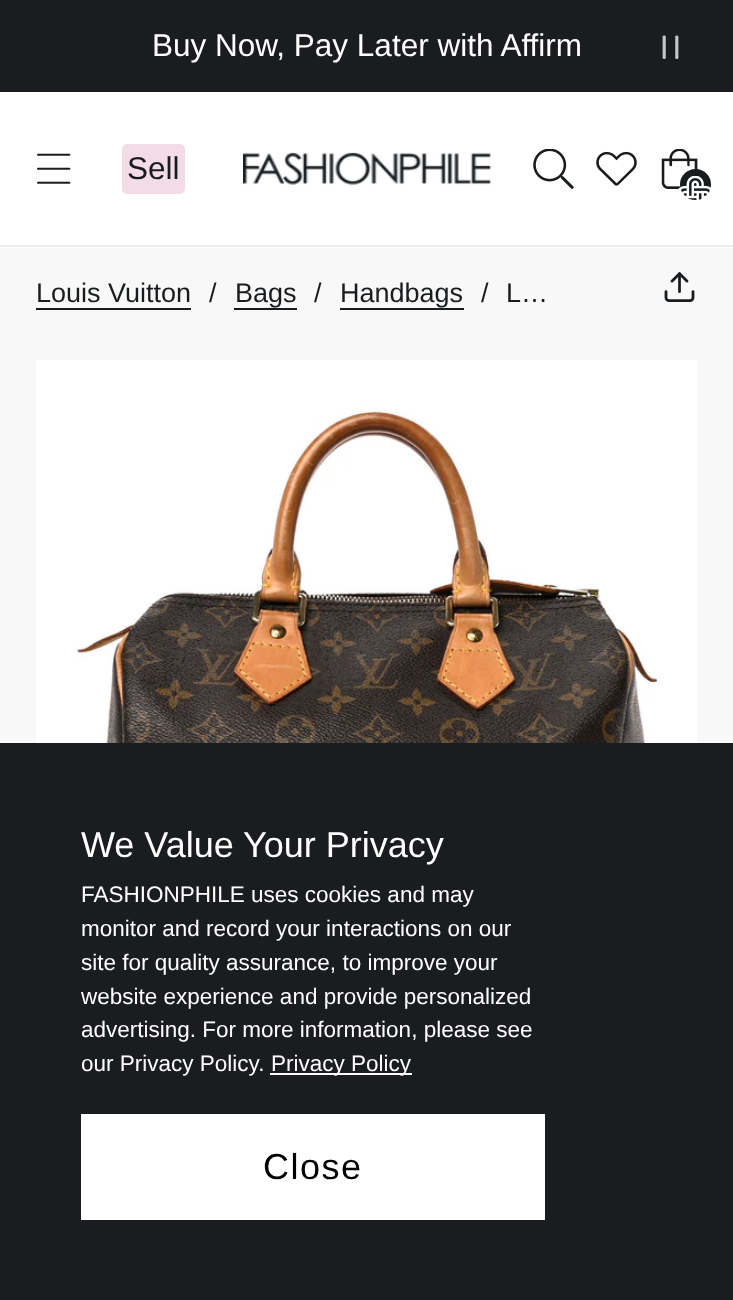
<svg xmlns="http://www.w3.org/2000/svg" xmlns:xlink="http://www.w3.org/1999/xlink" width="733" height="1300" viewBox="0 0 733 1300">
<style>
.cls-1{font:31.5px Liberation Sans;fill:#ffffff}
.cls-2{font:31.5px Liberation Sans;fill:#191c1f}
.cls-3{font:27px Liberation Sans;fill:#191c1f}
.cls-4{font:36px Liberation Sans;fill:#ffffff}
.cls-5{font:22.5px Liberation Sans;fill:#ffffff}
.cls-6{font:36px Liberation Sans;letter-spacing:1.5px;fill:#000000}
</style>
<rect width="100%" height="100%" fill="#ffffff"/>
<rect fill="#1a1c1f" x="0" y="0" width="733" height="92"/>
<image xlink:href="image0.png" x="662" y="35" width="17" height="24"/>
<rect fill="#ededed" x="0" y="245" width="733" height="2"/>
<image xlink:href="image1.png" x="37" y="153" width="34" height="31"/>
<rect fill="#f3dce6" x="122" y="144" width="63" height="50" rx="5"/>
<image xlink:href="image2.png" x="243" y="152" width="248" height="33"/>
<image xlink:href="image3.png" x="533" y="149" width="41" height="40"/>
<image xlink:href="image4.png" x="596" y="151" width="41" height="35"/>
<image xlink:href="image5.png" x="661" y="149" width="37" height="40"/>
<circle fill="#191c1f" cx="695.5" cy="184.5" r="15.5"/>
<image xlink:href="image6.png" x="678" y="176" width="33" height="24"/>
<rect fill="#f8f8f8" x="0" y="248" width="733" height="495"/>
<rect fill="#191c1f" x="36" y="308" width="155" height="2"/>
<rect fill="#191c1f" x="234" y="308" width="63" height="2"/>
<rect fill="#191c1f" x="340" y="308" width="124" height="2"/>
<image xlink:href="image7.png" x="664" y="272" width="31" height="30"/>
<image xlink:href="image8.png" x="36" y="360" width="661" height="383"/>
<rect fill="#1a1c1f" x="0" y="743" width="733" height="557"/>
<rect fill="#ffffff" x="270" y="1073" width="142" height="2"/>
<rect fill="#ffffff" x="81" y="1114" width="464" height="106"/>
<text class="cls-1" x="152" y="56">Buy Now, Pay Later with Affirm</text>
<text class="cls-2" x="127" y="179">Sell</text>
<text class="cls-3" x="36" y="302">Louis Vuitton</text>
<text class="cls-3" x="209" y="302">/</text>
<text class="cls-3" x="235" y="302">Bags</text>
<text class="cls-3" x="314" y="302">/</text>
<text class="cls-3" x="340" y="302">Handbags</text>
<text class="cls-3" x="481" y="302">/</text>
<text class="cls-3" x="506" y="302">L…</text>
<text class="cls-4" x="81" y="857">We Value Your Privacy</text>
<text class="cls-5"><tspan x="81" y="902">FASHIONPHILE uses cookies and may</tspan><tspan x="81" y="936">monitor and record your interactions on our</tspan><tspan x="81" y="970">site for quality assurance, to improve your</tspan><tspan x="81" y="1004">website experience and provide personalized</tspan><tspan x="81" y="1037">advertising. For more information, please see</tspan><tspan x="81" y="1071">our Privacy Policy.</tspan></text>
<text class="cls-5" x="271" y="1071">Privacy Policy</text>
<text class="cls-6" x="263" y="1179">Close</text>
</svg>
